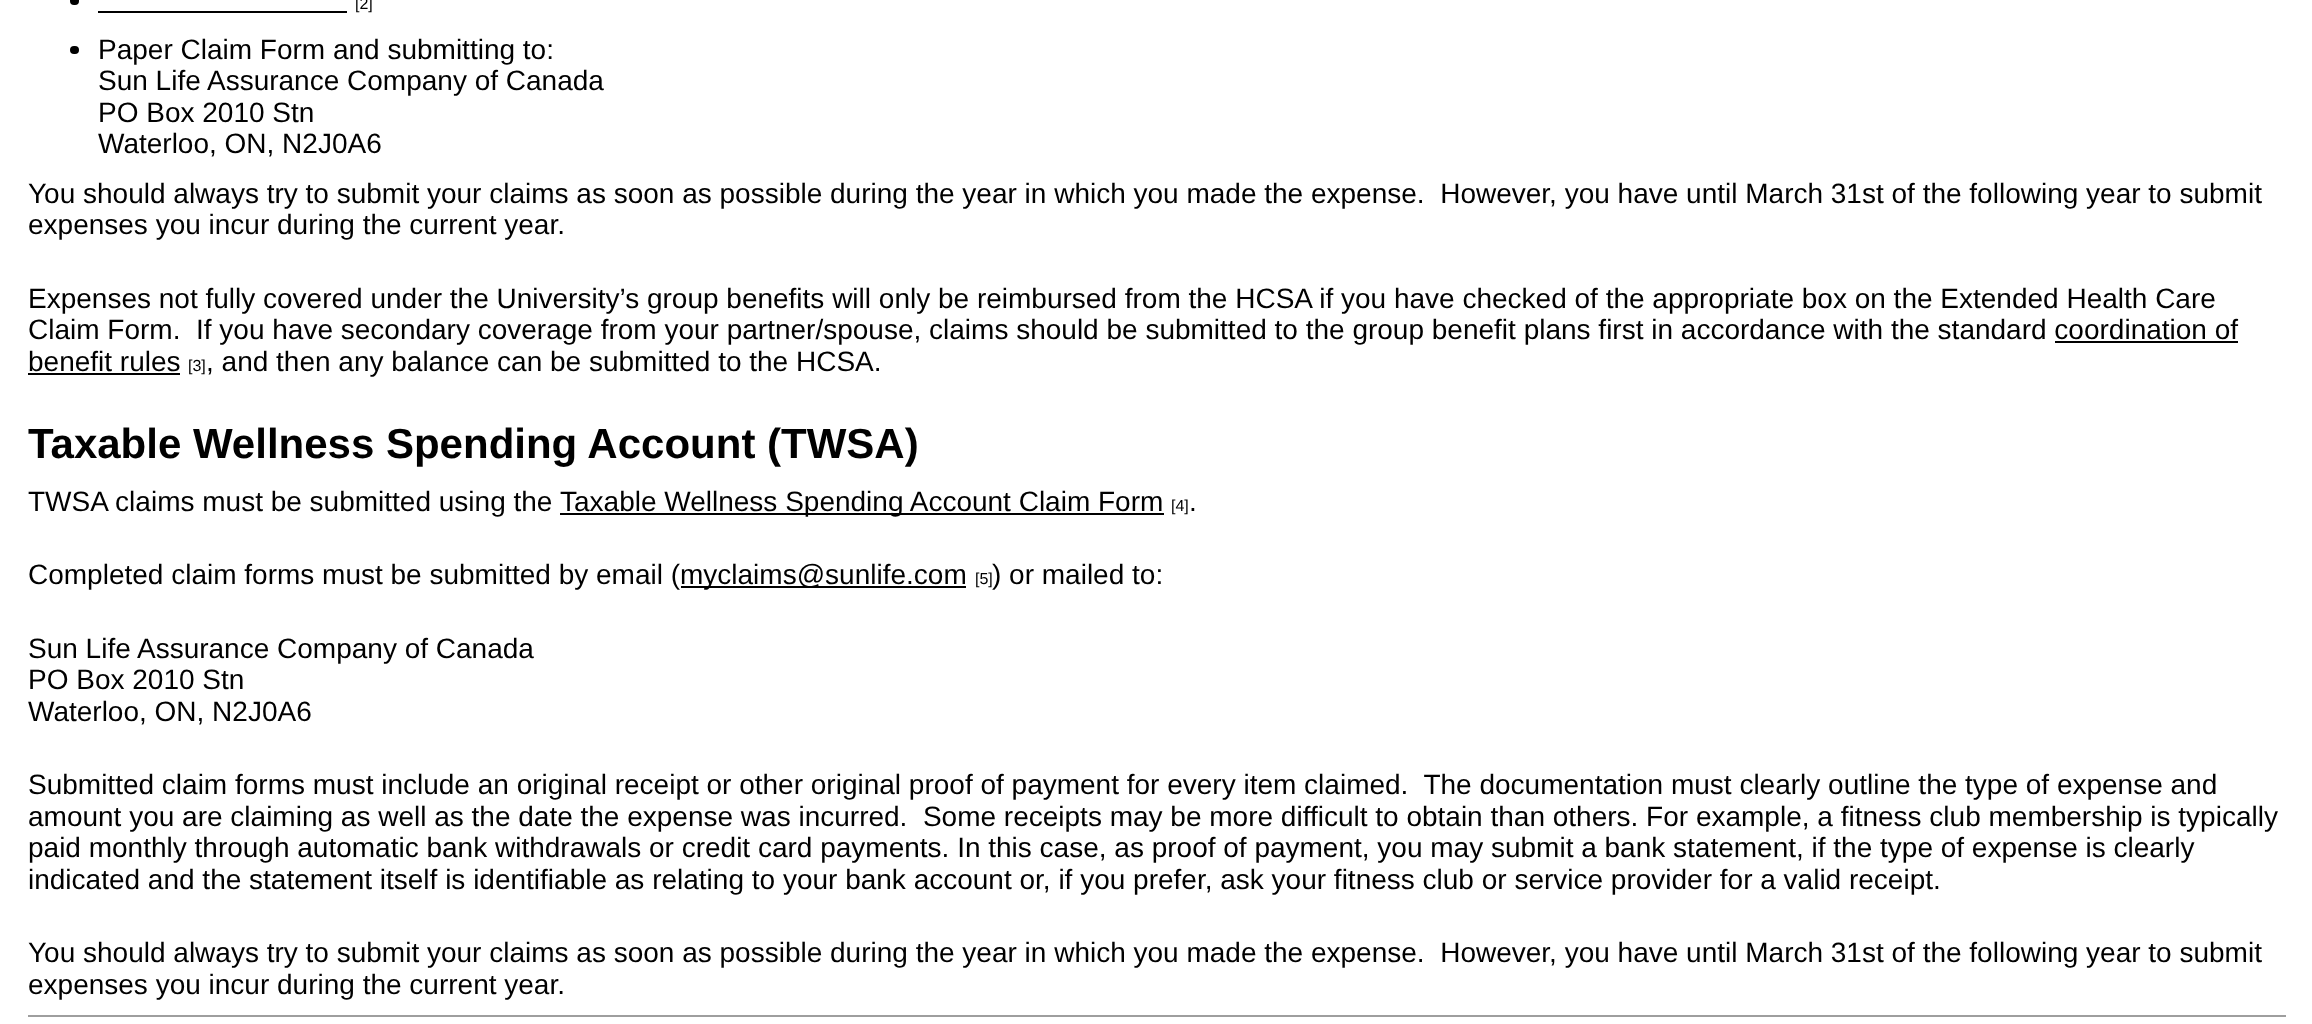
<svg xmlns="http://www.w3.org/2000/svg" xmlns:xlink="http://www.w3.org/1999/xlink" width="2312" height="1024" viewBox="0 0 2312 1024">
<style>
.cls-1{font:16px Liberation Sans;fill:#000000}
.cls-2{font:28px Liberation Sans;fill:#000000}
.cls-3{font:bold 42px Liberation Sans;fill:#000000}
</style>
<rect width="100%" height="100%" fill="#ffffff"/>
<rect fill="#000000" x="70" y="-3" width="9" height="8" rx="4"/>
<rect fill="#000000" x="98" y="11" width="249" height="2"/>
<rect fill="#000000" x="70" y="46" width="9" height="8" rx="4"/>
<rect fill="#000000" x="2055" y="341" width="183" height="2"/>
<rect fill="#000000" x="28" y="373" width="152" height="2"/>
<rect fill="#000000" x="560" y="513" width="604" height="2"/>
<rect fill="#000000" x="681" y="586" width="285" height="2"/>
<rect fill="#9e9e9e" x="28" y="1015" width="2258" height="2"/>
<text class="cls-1" x="355" y="9">[2]</text>
<text class="cls-2"><tspan x="98" y="59">Paper Claim Form and submitting to:</tspan><tspan x="98" y="90">Sun Life Assurance Company of Canada</tspan><tspan x="98" y="122">PO Box 2010 Stn</tspan><tspan x="98" y="153">Waterloo, ON, N2J0A6</tspan></text>
<text class="cls-2" xml:space="preserve"><tspan x="28" y="203">You should always try to submit your claims as soon as possible during the year in which you made the expense.  However, you have until March 31st of the following year to submit</tspan><tspan x="28" y="234">expenses you incur during the current year.</tspan></text>
<text class="cls-2" xml:space="preserve"><tspan x="28" y="308">Expenses not fully covered under the University’s group benefits will only be reimbursed from the HCSA if you have checked of the appropriate box on the Extended Health Care</tspan><tspan x="28" y="339">Claim Form.  If you have secondary coverage from your partner/spouse, claims should be submitted to the group benefit plans first in accordance with the standard coordination of</tspan><tspan x="28" y="371">benefit rules</tspan></text>
<text class="cls-1" x="188" y="371">[3]</text>
<text class="cls-2" x="206" y="371">, and then any balance can be submitted to the HCSA.</text>
<text class="cls-3" x="28" y="458">Taxable Wellness Spending Account (TWSA)</text>
<text class="cls-2" x="28" y="511">TWSA claims must be submitted using the</text>
<text class="cls-2" x="560" y="511">Taxable Wellness Spending Account Claim Form</text>
<text class="cls-1" x="1171" y="511">[4]</text>
<text class="cls-2" x="1189" y="511">.</text>
<text class="cls-2" x="28" y="584">Completed claim forms must be submitted by email (</text>
<text class="cls-2" x="680" y="584">myclaims@sunlife.com</text>
<text class="cls-1" x="975" y="584">[5]</text>
<text class="cls-2" x="992" y="584">) or mailed to:</text>
<text class="cls-2"><tspan x="28" y="658">Sun Life Assurance Company of Canada</tspan><tspan x="28" y="689">PO Box 2010 Stn</tspan><tspan x="28" y="721">Waterloo, ON, N2J0A6</tspan></text>
<text class="cls-2" xml:space="preserve"><tspan x="28" y="794">Submitted claim forms must include an original receipt or other original proof of payment for every item claimed.  The documentation must clearly outline the type of expense and</tspan><tspan x="28" y="826">amount you are claiming as well as the date the expense was incurred.  Some receipts may be more difficult to obtain than others. For example, a fitness club membership is typically</tspan><tspan x="28" y="857">paid monthly through automatic bank withdrawals or credit card payments. In this case, as proof of payment, you may submit a bank statement, if the type of expense is clearly</tspan><tspan x="28" y="889">indicated and the statement itself is identifiable as relating to your bank account or, if you prefer, ask your fitness club or service provider for a valid receipt.</tspan></text>
<text class="cls-2" xml:space="preserve"><tspan x="28" y="962">You should always try to submit your claims as soon as possible during the year in which you made the expense.  However, you have until March 31st of the following year to submit</tspan><tspan x="28" y="994">expenses you incur during the current year.</tspan></text>
</svg>
